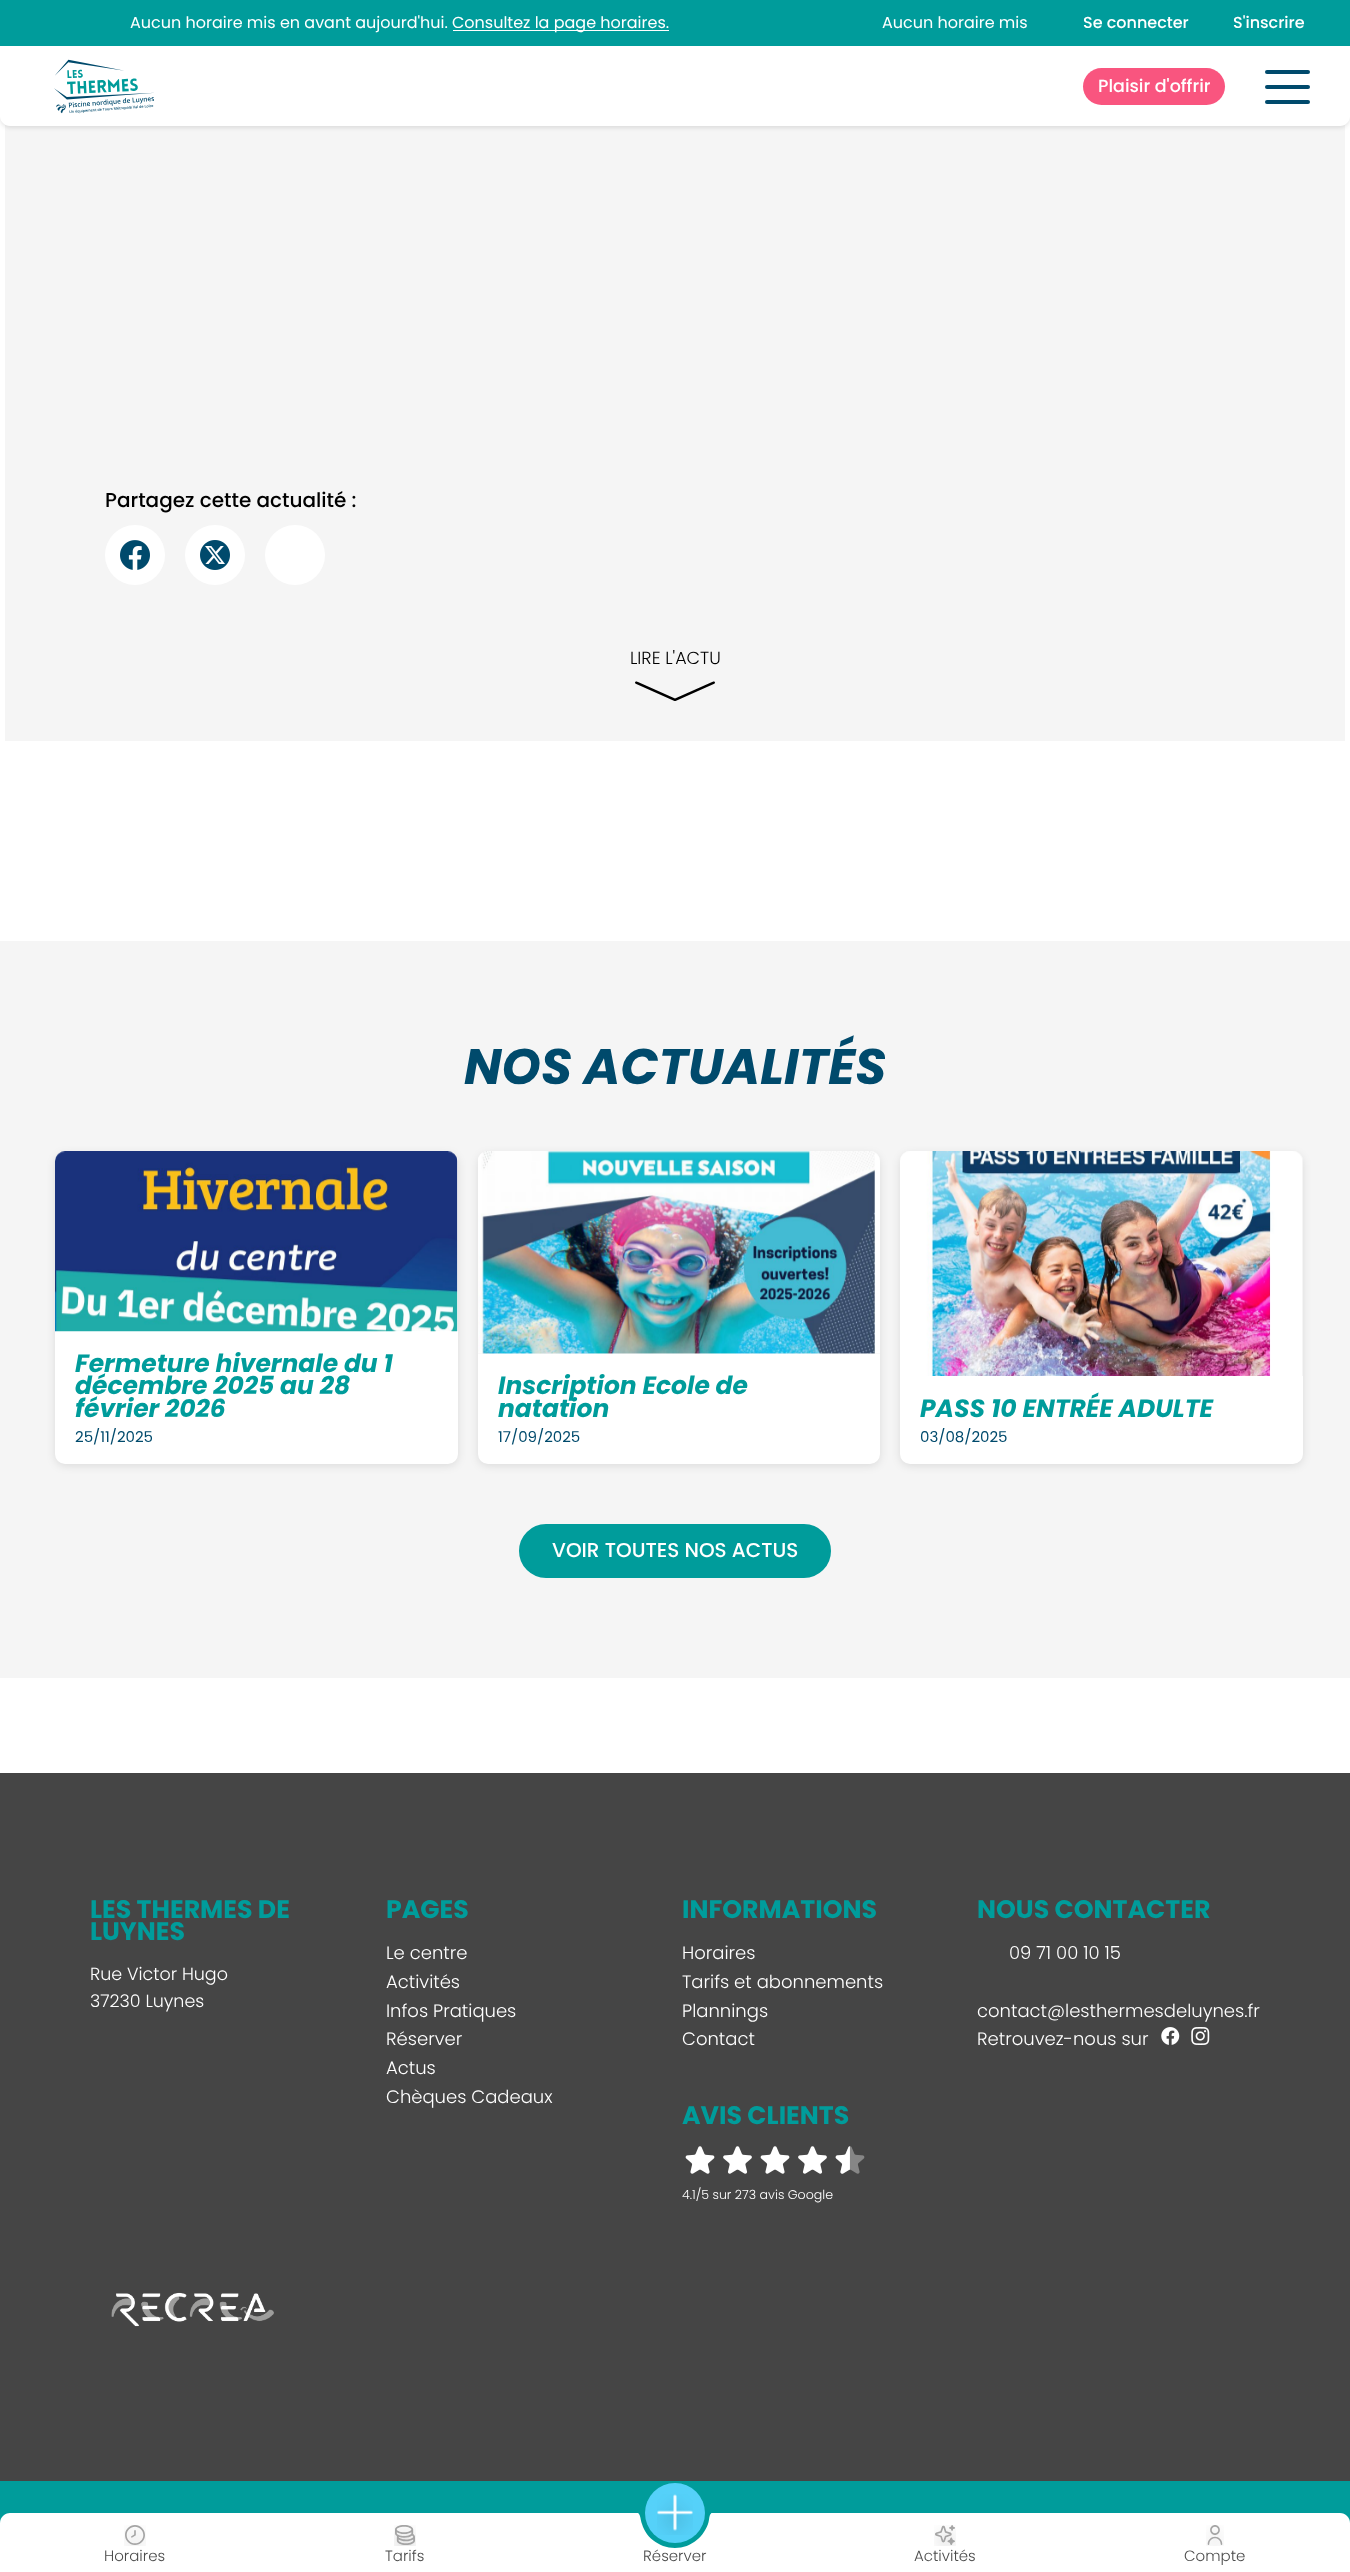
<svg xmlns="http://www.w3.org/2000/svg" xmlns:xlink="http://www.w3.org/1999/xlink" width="1350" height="2572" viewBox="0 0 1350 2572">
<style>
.cls-1{font:16px Poppins;fill:#ffffff}
.cls-2{font:500 16px Poppins;fill:#ffffff}
.cls-3{font:500 17.5px Poppins;fill:#ffffff}
.cls-4{font:500 20px Poppins;fill:#000000}
.cls-5{font:300 17.5px Poppins;fill:#000000}
.cls-6{font:italic bold 50px Poppins;fill:#004a6c}
.cls-7{font:italic bold 25px Poppins;fill:#009c9b}
.cls-8{font:15px Poppins;fill:#004a6c}
.cls-9{font:500 20px Poppins;fill:#ffffff}
.cls-10{font:300 15px Poppins;fill:#4c4c4c}
.cls-11{font:bold 25.25px Poppins;fill:#009c9b}
.cls-12{font:300 17.5px Poppins;fill:#ffffff}
.cls-13{font:300 18px Poppins;fill:#ffffff}
.cls-14{font:300 12.6px Poppins;fill:#ffffff}
</style>
<defs>
<clipPath id="clip1"><rect x="635" y="2513" width="80" height="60"/></clipPath>
</defs>
<rect width="100%" height="100%" fill="#ffffff"/>
<rect fill="#f5f5f5" x="5" y="125" width="1340" height="616"/>
<rect fill="#000000" fill-opacity="0.1" filter="blur(2px)" x="0" y="48" width="1350" height="80" rx="10"/>
<rect fill="#009c9b" x="0" y="0" width="1350" height="46"/>
<rect fill="#ffffff" x="453" y="30" width="216" height="1"/>
<path fill="#ffffff" d="M0 46H1350V116C1350 121.5 1345.5 126 1340 126H10C4.5 126 0 121.5 0 116Z"/>
<image xlink:href="image0.png" x="54" y="59" width="100" height="55"/>
<rect fill="#f9557f" x="1083" y="68" width="142" height="37" rx="18.5"/>
<rect fill="#004a6c" x="1265" y="70" width="45" height="4" rx="2"/>
<rect fill="#004a6c" x="1265" y="85" width="45" height="4" rx="2"/>
<rect fill="#004a6c" x="1265" y="100" width="45" height="4" rx="2"/>
<circle fill="#ffffff" cx="135" cy="555" r="30"/>
<image xlink:href="image1.png" x="120" y="540" width="30" height="30"/>
<circle fill="#ffffff" cx="215" cy="555" r="30"/>
<image xlink:href="image2.png" x="200" y="540" width="30" height="30"/>
<circle fill="#ffffff" cx="295" cy="555" r="30"/>
<image xlink:href="image3.png" x="635" y="681" width="80" height="20"/>
<rect fill="#f5f5f5" x="0" y="941" width="1350" height="737"/>
<rect fill="#000000" fill-opacity="0.1" filter="blur(4px)" x="55" y="1154" width="403" height="312" rx="10"/>
<rect fill="#ffffff" x="55" y="1151" width="403" height="313" rx="10"/>
<path fill="#f5f5f5" d="M65 1151H448C453.5 1151 458 1155.5 458 1161V1331H55V1161C55 1155.5 59.5 1151 65 1151Z"/>
<image xlink:href="image4.png" x="55" y="1151" width="403" height="181"/>
<rect fill="#000000" fill-opacity="0.1" filter="blur(4px)" x="478" y="1154" width="402" height="312" rx="10"/>
<rect fill="#ffffff" x="478" y="1151" width="402" height="313" rx="10"/>
<path fill="#f5f5f5" d="M488 1151H870C875.5 1151 880 1155.5 880 1161V1354H478V1161C478 1155.5 482.5 1151 488 1151Z"/>
<image xlink:href="image5.png" x="478" y="1151" width="402" height="203"/>
<rect fill="#000000" fill-opacity="0.1" filter="blur(4px)" x="900" y="1154" width="403" height="312" rx="10"/>
<rect fill="#ffffff" x="900" y="1151" width="403" height="313" rx="10"/>
<path fill="#f5f5f5" d="M910 1151H1293C1298.5 1151 1303 1155.5 1303 1161V1376H900V1161C900 1155.5 904.5 1151 910 1151Z"/>
<image xlink:href="image6.png" x="900" y="1151" width="402" height="225"/>
<rect fill="#009c9b" stroke="#009c9b" stroke-width="3" x="520.5" y="1525.5" width="309" height="51" rx="25.5"/>
<rect fill="#009c9b" x="0" y="2481" width="1350" height="67"/>
<path fill="#ffffff" d="M10 2513H270V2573H0V2523C0 2517.5 4.5 2513 10 2513Z"/>
<image xlink:href="image7.png" x="124" y="2525" width="22" height="21"/>
<rect fill="#ffffff" x="270" y="2513" width="365" height="35"/>
<image xlink:href="image8.png" x="394" y="2525" width="22" height="21"/>
<rect fill="#ffffff" x="715" y="2513" width="365" height="35"/>
<g clip-path="url(#clip1)">
<path fill="#ffffff" d="M715 2512V2572H635V2512C641 2512 640 2519 642 2524C646 2538 660 2548 675 2548C690 2548 703 2538 708 2524C710 2519 708 2512 715 2512Z"/>
</g>
<circle fill="#55d1f9" cx="675" cy="2513" r="30"/>
<image xlink:href="image9.png" x="657" y="2494" width="36" height="41"/>
<image xlink:href="image10.png" x="934" y="2525" width="22" height="21"/>
<path fill="#ffffff" d="M1080 2513H1340C1345.5 2513 1350 2517.5 1350 2523V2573H1080Z"/>
<image xlink:href="image11.png" x="1206" y="2525" width="18" height="21"/>
<rect fill="#454545" x="0" y="1773" width="1350" height="708"/>
<image xlink:href="image12.png" x="685" y="2146" width="30" height="28"/>
<image xlink:href="image13.png" x="723" y="2146" width="29" height="28"/>
<image xlink:href="image12.png" x="760" y="2146" width="30" height="28"/>
<image xlink:href="image13.png" x="798" y="2146" width="29" height="28"/>
<image xlink:href="image14.png" x="835" y="2146" width="30" height="28"/>
<image xlink:href="image15.png" x="1161" y="2027" width="19" height="18"/>
<image xlink:href="image16.png" x="1191" y="2027" width="19" height="18"/>
<image xlink:href="image17.png" x="111" y="2292" width="163" height="35"/>
<text class="cls-1" x="130" y="28">Aucun horaire mis en avant aujourd'hui.</text>
<text class="cls-1" x="452" y="28">Consultez la page horaires.</text>
<text class="cls-1" x="882" y="28">Aucun horaire mis</text>
<text class="cls-2" x="1083" y="28">Se connecter</text>
<text class="cls-2" x="1233" y="28">S'inscrire</text>
<text class="cls-3" x="1098" y="92">Plaisir d'offrir</text>
<text class="cls-4" x="105" y="507">Partagez cette actualité :</text>
<text class="cls-5" x="630" y="664">LIRE L'ACTU</text>
<text class="cls-6" x="464" y="1084">NOS ACTUALITÉS</text>
<text class="cls-7"><tspan x="75" y="1372">Fermeture hivernale du 1</tspan><tspan x="75" y="1394">décembre 2025 au 28</tspan><tspan x="75" y="1417">février 2026</tspan></text>
<text class="cls-8" x="75" y="1442">25/11/2025</text>
<text class="cls-7"><tspan x="498" y="1394">Inscription Ecole de</tspan><tspan x="498" y="1417">natation</tspan></text>
<text class="cls-8" x="498" y="1442">17/09/2025</text>
<text class="cls-7" x="920" y="1417">PASS 10 ENTRÉE ADULTE</text>
<text class="cls-8" x="920" y="1442">03/08/2025</text>
<text class="cls-9" x="552" y="1557">VOIR TOUTES NOS ACTUS</text>
<text class="cls-10" x="104" y="2561">Horaires</text>
<text class="cls-10" x="385" y="2561">Tarifs</text>
<text class="cls-10" x="643" y="2561">Réserver</text>
<text class="cls-10" x="914" y="2561">Activités</text>
<text class="cls-10" x="1184" y="2561">Compte</text>
<text class="cls-11"><tspan x="90" y="1918">LES THERMES DE</tspan><tspan x="90" y="1940">LUYNES</tspan></text>
<text class="cls-12"><tspan x="90" y="1980">Rue Victor Hugo</tspan><tspan x="90" y="2007">37230 Luynes</tspan></text>
<text class="cls-11" x="386" y="1918">PAGES</text>
<text class="cls-13"><tspan x="386" y="1959">Le centre</tspan><tspan x="386" y="1988">Activités</tspan><tspan x="386" y="2017">Infos Pratiques</tspan><tspan x="386" y="2045">Réserver</tspan><tspan x="386" y="2074">Actus</tspan><tspan x="386" y="2103">Chèques Cadeaux</tspan></text>
<text class="cls-11" x="682" y="1918">INFORMATIONS</text>
<text class="cls-13"><tspan x="682" y="1959">Horaires</tspan><tspan x="682" y="1988">Tarifs et abonnements</tspan><tspan x="682" y="2017">Plannings</tspan><tspan x="682" y="2045">Contact</tspan></text>
<text class="cls-11" x="682" y="2124">AVIS CLIENTS</text>
<text class="cls-14" x="682" y="2199">4.1/5 sur 273 avis Google</text>
<text class="cls-11" x="977" y="1918">NOUS CONTACTER</text>
<text class="cls-13" x="1009" y="1959">09 71 00 10 15</text>
<text class="cls-13"><tspan x="977" y="2017">contact@lesthermesdeluynes.fr</tspan><tspan x="977" y="2045">Retrouvez-nous sur</tspan></text>
</svg>
